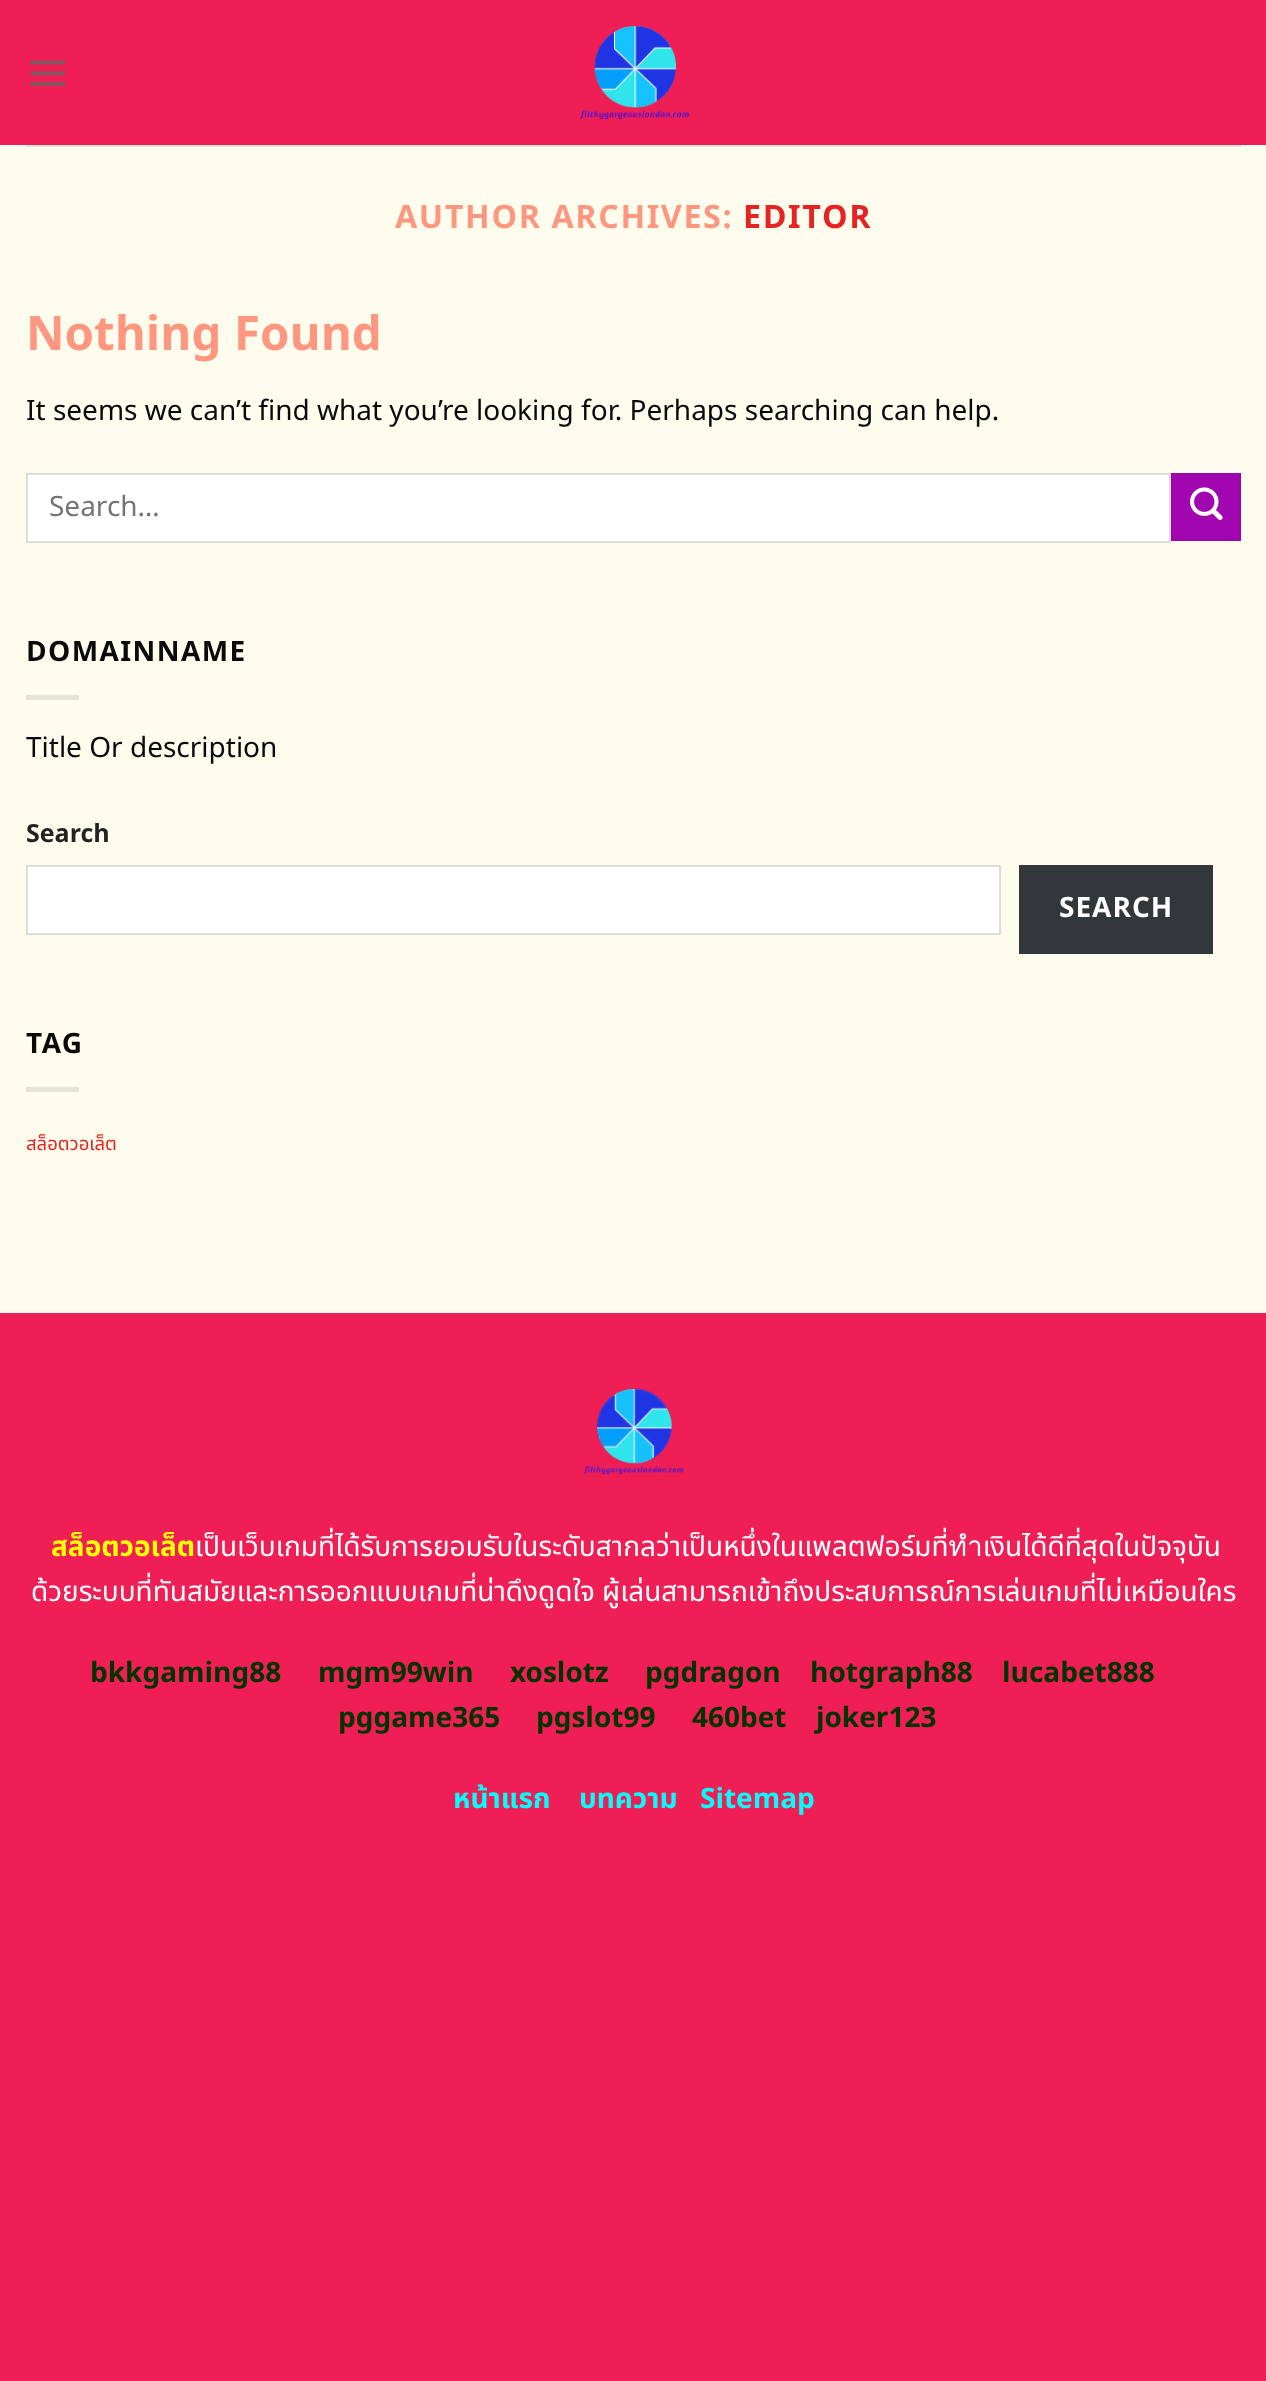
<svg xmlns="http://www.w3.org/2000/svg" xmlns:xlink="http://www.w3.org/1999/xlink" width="1266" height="2381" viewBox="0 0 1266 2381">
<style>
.cls-1{font:bold 32.25px Noto Sans Thai;letter-spacing:1.6px;fill:#ff967f}
.cls-2{font:bold 32.25px Noto Sans Thai;letter-spacing:1.6px;fill:#e62222}
.cls-3{font:bold 47.5px Noto Sans Thai;fill:#ff967f}
.cls-4{font:28px Noto Sans Thai;fill:#0a0a0a}
.cls-5{font:28px Noto Sans Thai;fill:#757575}
.cls-6{font:bold 28px Noto Sans Thai;letter-spacing:1.4px;fill:#0a0a0a}
.cls-7{font:bold 25px Noto Sans Thai;fill:#222222}
.cls-8{font:bold 28px Noto Sans Thai;letter-spacing:1px;fill:#ffffff}
.cls-9{font:18.5px Noto Sans Thai;fill:#e62222}
.cls-10{font:bold 28px Noto Sans Thai;fill:#ffff00}
.cls-11{font:28px Noto Sans Thai;fill:#ffffff}
.cls-12{font:bold 28px Noto Sans Thai;fill:#003300}
.cls-13{font:bold 28px Noto Sans Thai;fill:#00ffff}
</style>
<rect width="100%" height="100%" fill="#ef1f56"/>
<image xlink:href="image0.png" x="29" y="60" width="37" height="26"/>
<image xlink:href="image1.png" x="580" y="25" width="109" height="95"/>
<rect fill="#fefded" x="0" y="145" width="1266" height="1168"/>
<rect fill="#e6e5d6" x="26" y="145" width="1215" height="2"/>
<rect fill="#ffffff" stroke="#dddddd" stroke-width="2" x="27" y="474" width="1143" height="68"/>
<rect fill="#a206b1" stroke="#9a06a8" stroke-width="2" x="1172" y="474" width="68" height="66"/>
<image xlink:href="image2.png" x="1190" y="487" width="33" height="33"/>
<rect fill="#e5e4d5" x="26" y="695" width="53" height="5"/>
<rect fill="#ffffff" stroke="#dddddd" stroke-width="2" x="27" y="866" width="973" height="68"/>
<rect fill="#32373c" x="1019" y="865" width="194" height="89"/>
<rect fill="#e5e4d5" x="26" y="1087" width="53" height="5"/>
<image xlink:href="image3.png" x="583" y="1388" width="101" height="88"/>
<text class="cls-1" x="395" y="228">AUTHOR ARCHIVES:</text>
<text class="cls-2" x="743" y="228">EDITOR</text>
<text class="cls-3" x="26" y="350">Nothing Found</text>
<text class="cls-4" x="26" y="420">It seems we can’t find what you’re looking for. Perhaps searching can help.</text>
<text class="cls-5" x="49" y="516">Search…</text>
<text class="cls-6" x="26" y="661">DOMAINNAME</text>
<text class="cls-4" x="26" y="757">Title Or description</text>
<text class="cls-7" x="26" y="842">Search</text>
<text class="cls-8" x="1059" y="917">SEARCH</text>
<text class="cls-6" x="26" y="1053">TAG</text>
<text class="cls-9" x="26" y="1150">สล็อตวอเล็ต</text>
<text class="cls-10" x="51" y="1556">สล็อตวอเล็ต</text>
<text class="cls-11" x="195" y="1556">เป็นเว็บเกมที่ได้รับการยอมรับในระดับสากลว่าเป็นหนึ่งในแพลตฟอร์มที่ทำเงินได้ดีที่สุดในปัจจุบัน</text>
<text class="cls-11" x="31" y="1601">ด้วยระบบที่ทันสมัยและการออกแบบเกมที่น่าดึงดูดใจ ผู้เล่นสามารถเข้าถึงประสบการณ์การเล่นเกมที่ไม่เหมือนใคร</text>
<text class="cls-12" x="90" y="1682">bkkgaming88</text>
<text class="cls-12" x="318" y="1682">mgm99win</text>
<text class="cls-12" x="510" y="1682">xoslotz</text>
<text class="cls-12" x="645" y="1682">pgdragon</text>
<text class="cls-12" x="810" y="1682">hotgraph88</text>
<text class="cls-12" x="1002" y="1682">lucabet888</text>
<text class="cls-12" x="338" y="1727">pggame365</text>
<text class="cls-12" x="536" y="1727">pgslot99</text>
<text class="cls-12" x="692" y="1727">460bet</text>
<text class="cls-12" x="816" y="1727">joker123</text>
<text class="cls-13" x="453" y="1808">หน้าแรก</text>
<text class="cls-13" x="579" y="1808">บทความ</text>
<text class="cls-13" x="700" y="1808">Sitemap</text>
</svg>
